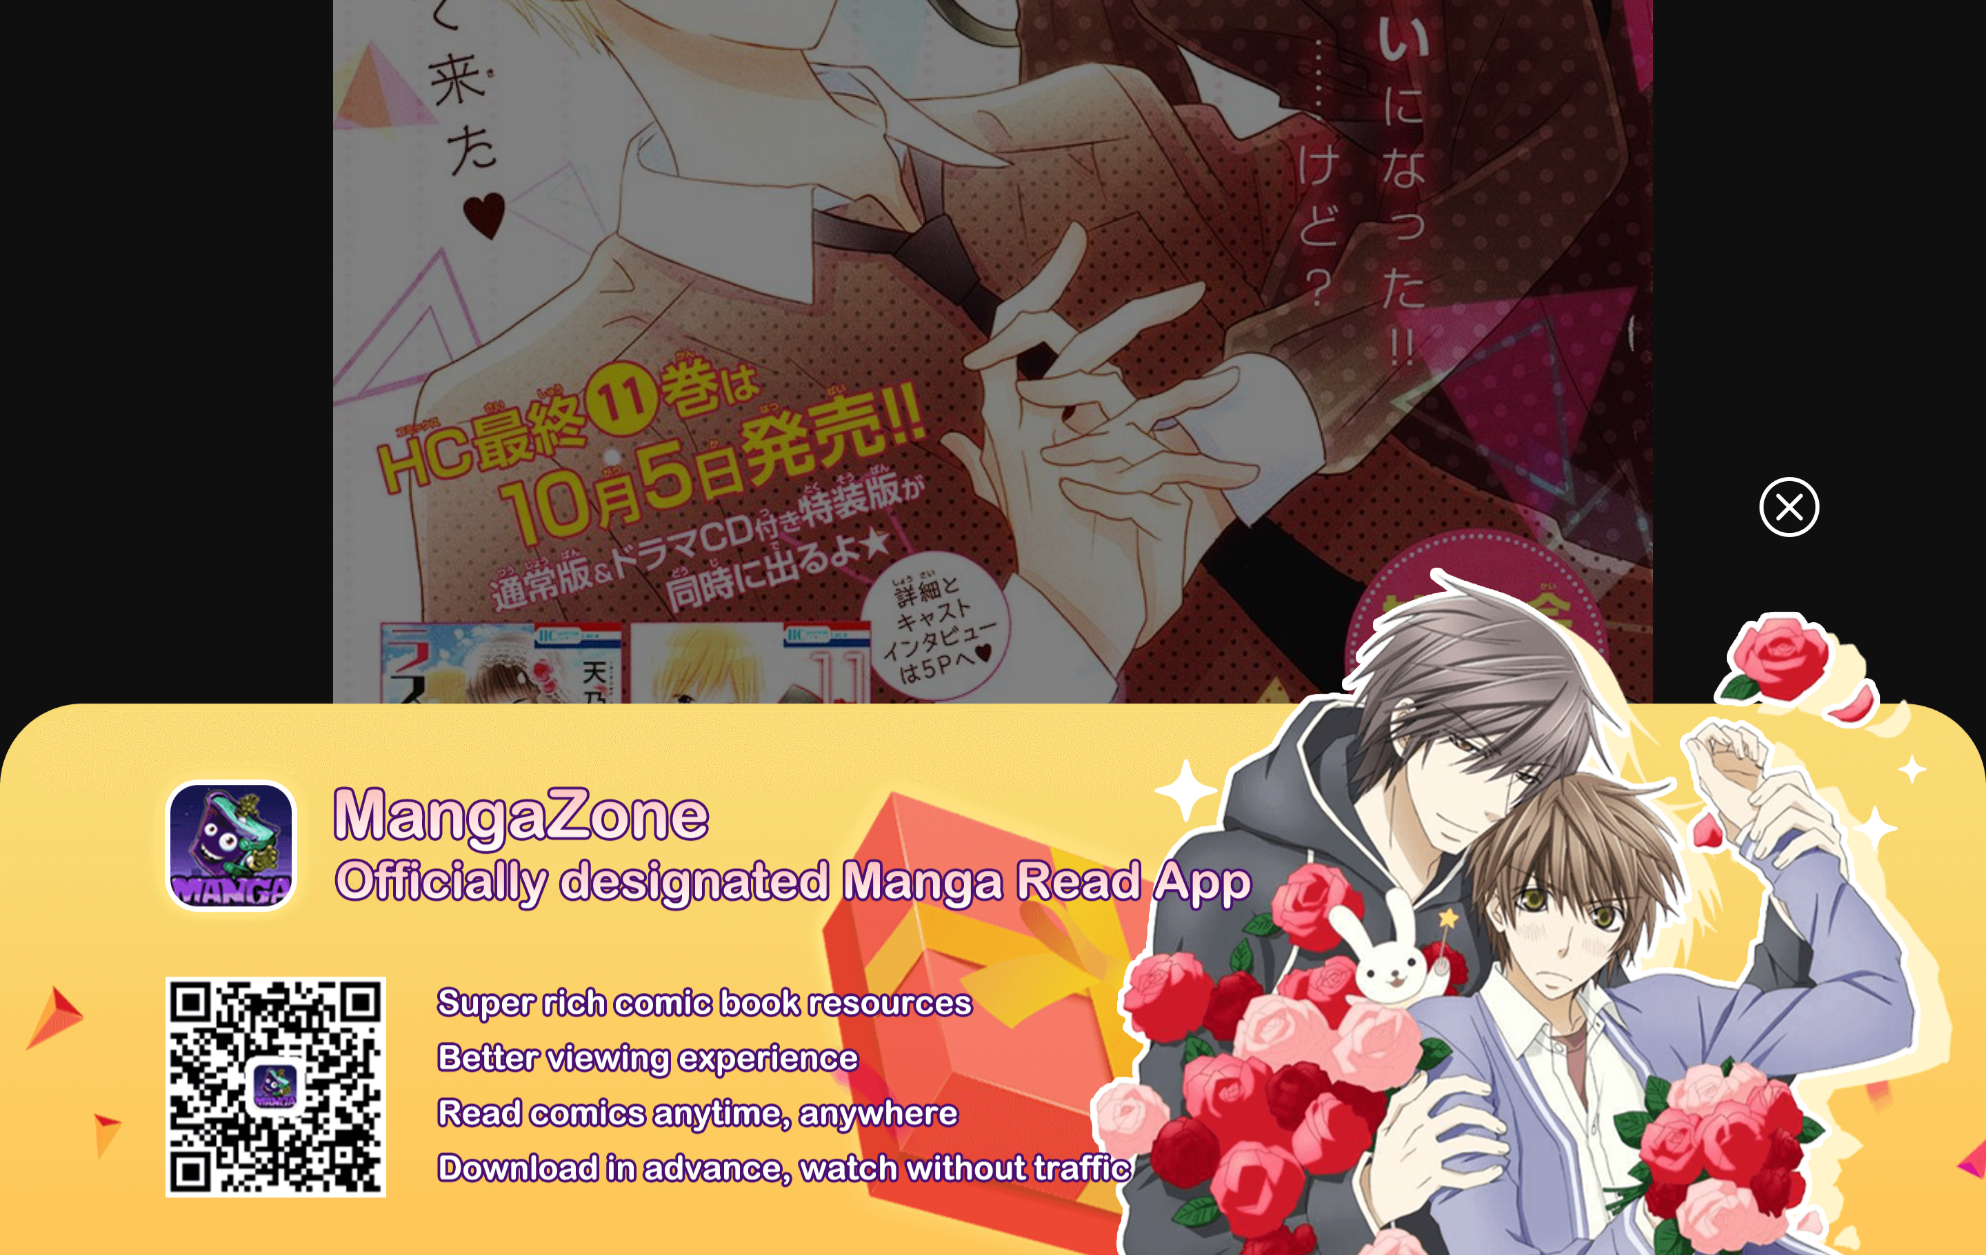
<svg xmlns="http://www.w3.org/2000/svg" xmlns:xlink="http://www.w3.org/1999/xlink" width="1986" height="1255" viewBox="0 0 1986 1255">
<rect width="100%" height="100%" fill="#0f0f0f"/>
<image xlink:href="image0.png" x="333" y="0" width="1320" height="705"/>
<image xlink:href="image1.png" x="1759" y="477" width="61" height="60"/>
<image xlink:href="image2.png" x="0" y="567" width="1986" height="688"/>
</svg>
